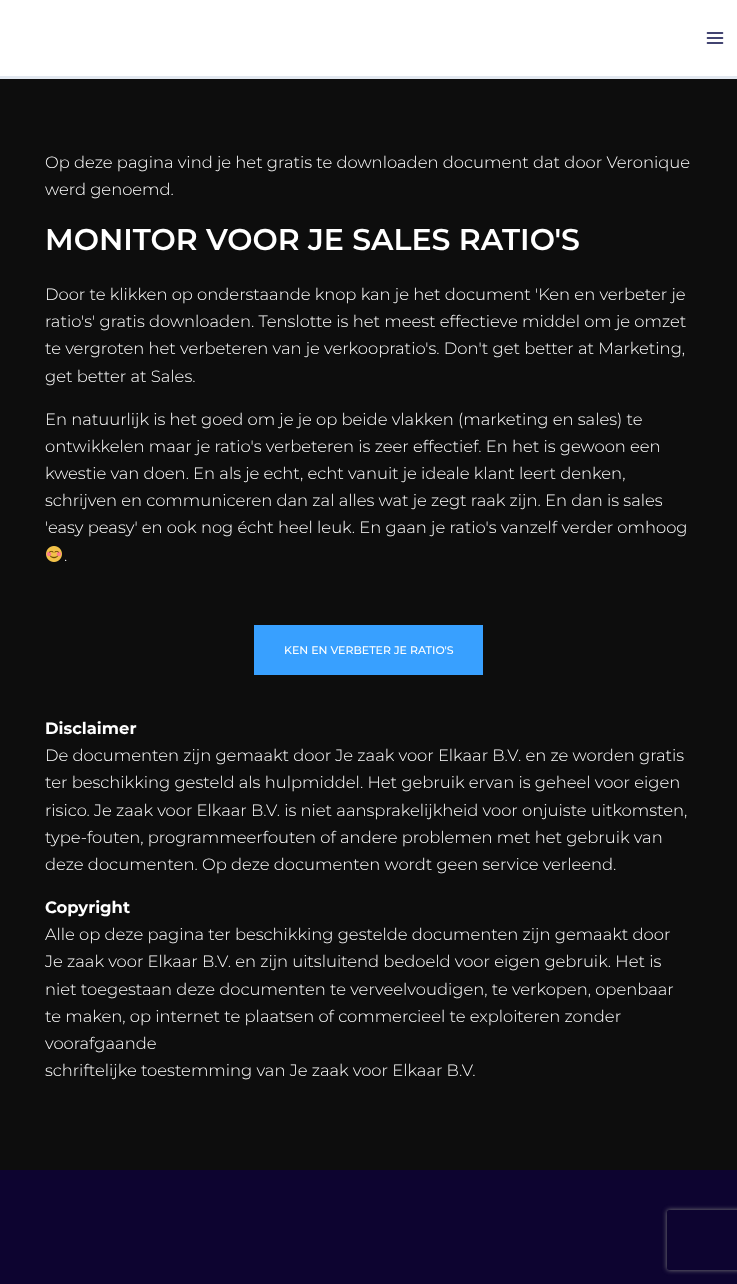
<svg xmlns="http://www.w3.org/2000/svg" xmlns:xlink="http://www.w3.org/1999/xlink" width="737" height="1284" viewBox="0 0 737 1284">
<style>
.cls-1{font:300 16.4px Montserrat;fill:#ffffff}
.cls-2{font:600 30px Montserrat;fill:#ffffff}
.cls-3{font:500 11px Montserrat;fill:#ffffff}
.cls-4{font:bold 16.4px Montserrat;fill:#ffffff}
</style>
<defs>
<clipPath id="clip1"><path d="M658 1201H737V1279H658ZM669 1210H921C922 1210 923 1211 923 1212V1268C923 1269 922 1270 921 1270H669C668 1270 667 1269 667 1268V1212C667 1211 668 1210 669 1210Z" clip-rule="evenodd"/></clipPath>
</defs>
<rect width="100%" height="100%" fill="#ffffff"/>
<rect fill="#e2e8f0" x="0" y="76" width="737" height="3"/>
<image xlink:href="image0.png" x="706" y="32" width="18" height="12"/>
<rect fill="#0d0d0d" x="0" y="79" width="737" height="1091"/>
<image xlink:href="image1.png" x="46" y="546" width="16" height="16"/>
<rect fill="#38a0ff" x="254" y="625" width="229" height="50"/>
<rect fill="#0d0430" x="0" y="1170" width="737" height="114"/>
<g clip-path="url(#clip1)">
<rect fill="#808080" filter="blur(2.5px)" x="667" y="1210" width="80" height="60" rx="2"/>
</g>
<text class="cls-1"><tspan x="45" y="168">Op deze pagina vind je het gratis te downloaden document dat door Veronique</tspan><tspan x="45" y="195">werd genoemd.</tspan></text>
<text class="cls-2" x="45" y="250">MONITOR VOOR JE SALES RATIO'S</text>
<text class="cls-1"><tspan x="45" y="300">Door te klikken op onderstaande knop kan je het document 'Ken en verbeter je</tspan><tspan x="45" y="327">ratio's' gratis downloaden. Tenslotte is het meest effectieve middel om je omzet</tspan><tspan x="45" y="354">te vergroten het verbeteren van je verkoopratio's. Don't get better at Marketing,</tspan><tspan x="45" y="382">get better at Sales.</tspan></text>
<text class="cls-1"><tspan x="45" y="425">En natuurlijk is het goed om je je op beide vlakken (marketing en sales) te</tspan><tspan x="45" y="452">ontwikkelen maar je ratio's verbeteren is zeer effectief. En het is gewoon een</tspan><tspan x="45" y="479">kwestie van doen. En als je echt, echt vanuit je ideale klant leert denken,</tspan><tspan x="45" y="506">schrijven en communiceren dan zal alles wat je zegt raak zijn. En dan is sales</tspan><tspan x="45" y="533">'easy peasy' en ook nog écht heel leuk. En gaan je ratio's vanzelf verder omhoog</tspan></text>
<text class="cls-1" x="64" y="561">.</text>
<text class="cls-3" x="284" y="654">KEN EN VERBETER JE RATIO'S</text>
<text class="cls-4" x="45" y="734">Disclaimer</text>
<text class="cls-1"><tspan x="45" y="761">De documenten zijn gemaakt door Je zaak voor Elkaar B.V. en ze worden gratis</tspan><tspan x="45" y="788">ter beschikking gesteld als hulpmiddel. Het gebruik ervan is geheel voor eigen</tspan><tspan x="45" y="816">risico. Je zaak voor Elkaar B.V. is niet aansprakelijkheid voor onjuiste uitkomsten,</tspan><tspan x="45" y="843">type-fouten, programmeerfouten of andere problemen met het gebruik van</tspan><tspan x="45" y="870">deze documenten. Op deze documenten wordt geen service verleend.</tspan></text>
<text class="cls-4" x="45" y="913">Copyright</text>
<text class="cls-1"><tspan x="45" y="940">Alle op deze pagina ter beschikking gestelde documenten zijn gemaakt door</tspan><tspan x="45" y="967">Je zaak voor Elkaar B.V. en zijn uitsluitend bedoeld voor eigen gebruik. Het is</tspan><tspan x="45" y="995">niet toegestaan deze documenten te verveelvoudigen, te verkopen, openbaar</tspan><tspan x="45" y="1022">te maken, op internet te plaatsen of commercieel te exploiteren zonder</tspan><tspan x="45" y="1049">voorafgaande</tspan><tspan x="45" y="1076">schriftelijke toestemming van Je zaak voor Elkaar B.V.</tspan></text>
</svg>
